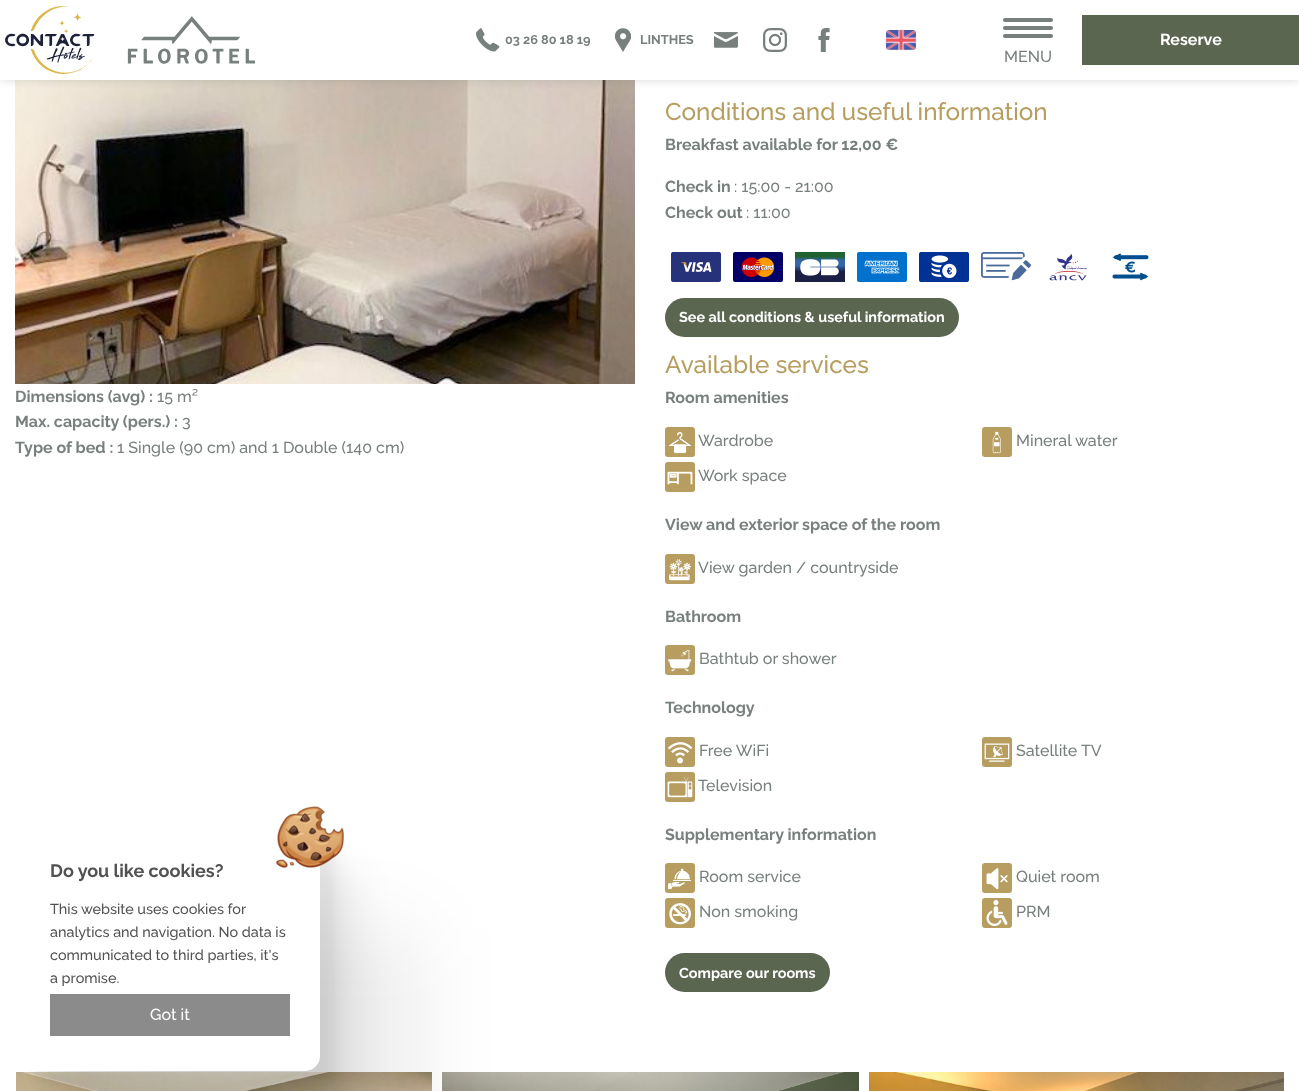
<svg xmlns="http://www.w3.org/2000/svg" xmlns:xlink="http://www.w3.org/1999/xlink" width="1299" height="1091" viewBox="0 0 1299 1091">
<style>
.cls-1{font:bold 12.75px Raleway;fill:#78807d}
.cls-2{font:bold 16px Raleway;fill:#ffffff}
.cls-3{font:500 16px Raleway;fill:#78807d}
.cls-4{font:bold 16px Raleway;fill:#78807d}
.cls-5{font:500 24.3px Raleway;fill:#b79d60}
.cls-6{font:bold 14.4px Raleway;fill:#ffffff}
.cls-7{font:bold 18px Raleway;fill:#525252}
.cls-8{font:500 14.4px Raleway;fill:#525252}
.cls-9{font:500 16px Raleway;fill:#ffffff}
</style>
<rect width="100%" height="100%" fill="#ffffff"/>
<image xlink:href="image7.png" x="15" y="80" width="620" height="304"/>
<rect fill="#78807d" fill-opacity="0.3" filter="blur(5px)" x="0" y="0" width="1299" height="80"/>
<rect fill="#ffffff" x="0" y="0" width="1299" height="80"/>
<image xlink:href="image0.png" x="5" y="6" width="250" height="68"/>
<image xlink:href="image1.png" x="476" y="28" width="24" height="24"/>
<image xlink:href="image2.png" x="615" y="28" width="16" height="24"/>
<image xlink:href="image3.png" x="714" y="32" width="24" height="16"/>
<image xlink:href="image4.png" x="763" y="28" width="24" height="24"/>
<image xlink:href="image5.png" x="818" y="28" width="12" height="24"/>
<image xlink:href="image6.png" x="886" y="30" width="30" height="20"/>
<rect fill="#5a6650" x="1082" y="15" width="217" height="50"/>
<rect fill="#78807d" x="1003" y="34" width="50" height="4" rx="2"/>
<rect fill="#78807d" x="1003" y="18" width="50" height="4" rx="2"/>
<rect fill="#78807d" x="1003" y="26" width="50" height="4" rx="2"/>
<image xlink:href="image8.png" x="671" y="252" width="50" height="30"/>
<image xlink:href="image9.png" x="733" y="252" width="50" height="30"/>
<image xlink:href="image10.png" x="795" y="252" width="50" height="30"/>
<image xlink:href="image11.png" x="857" y="252" width="50" height="30"/>
<image xlink:href="image12.png" x="919" y="252" width="50" height="30"/>
<image xlink:href="image13.png" x="981" y="252" width="50" height="29"/>
<image xlink:href="image14.png" x="1049" y="253" width="38" height="28"/>
<image xlink:href="image15.png" x="1112" y="253" width="37" height="28"/>
<rect fill="#5a6650" x="665" y="298" width="294" height="39" rx="19.5"/>
<rect fill="#b79d60" x="665" y="427" width="30" height="30" rx="3"/>
<image xlink:href="image16.png" x="668" y="432" width="24" height="22"/>
<rect fill="#b79d60" x="982" y="427" width="30" height="30" rx="3"/>
<image xlink:href="image17.png" x="992" y="431" width="9" height="23"/>
<rect fill="#b79d60" x="665" y="462" width="30" height="30" rx="3"/>
<image xlink:href="image18.png" x="667" y="471" width="26" height="14"/>
<rect fill="#b79d60" x="665" y="554" width="30" height="30" rx="3"/>
<image xlink:href="image19.png" x="669" y="559" width="22" height="22"/>
<rect fill="#b79d60" x="665" y="645" width="30" height="30" rx="3"/>
<image xlink:href="image20.png" x="668" y="650" width="24" height="22"/>
<rect fill="#b79d60" x="665" y="737" width="30" height="30" rx="3"/>
<image xlink:href="image21.png" x="668" y="742" width="25" height="22"/>
<rect fill="#b79d60" x="982" y="737" width="30" height="30" rx="3"/>
<image xlink:href="image22.png" x="984" y="743" width="26" height="19"/>
<rect fill="#b79d60" x="665" y="772" width="30" height="30" rx="3"/>
<image xlink:href="image23.png" x="667" y="777" width="26" height="21"/>
<rect fill="#b79d60" x="665" y="863" width="30" height="30" rx="3"/>
<image xlink:href="image24.png" x="668" y="868" width="23" height="22"/>
<rect fill="#b79d60" x="982" y="863" width="30" height="30" rx="3"/>
<image xlink:href="image25.png" x="986" y="868" width="22" height="22"/>
<rect fill="#b79d60" x="665" y="898" width="30" height="30" rx="3"/>
<image xlink:href="image26.png" x="669" y="903" width="22" height="22"/>
<rect fill="#b79d60" x="982" y="898" width="30" height="30" rx="3"/>
<image xlink:href="image27.png" x="986" y="900" width="22" height="26"/>
<rect fill="#5a6650" x="665" y="953" width="165" height="39" rx="19.5"/>
<image xlink:href="image28.png" x="16" y="1072" width="416" height="19"/>
<image xlink:href="image29.png" x="442" y="1072" width="417" height="19"/>
<image xlink:href="image30.png" x="869" y="1072" width="415" height="19"/>
<rect fill="#000000" fill-opacity="0.07" filter="blur(40px)" x="120" y="927" width="300" height="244" rx="15"/>
<rect fill="#000000" fill-opacity="0.05" filter="blur(16.5px)" x="62" y="869" width="300" height="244" rx="15"/>
<rect fill="#000000" fill-opacity="0.04" filter="blur(9px)" x="42" y="849" width="300" height="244" rx="15"/>
<rect fill="#000000" fill-opacity="0.04" filter="blur(5px)" x="33" y="840" width="300" height="244" rx="15"/>
<rect fill="#ffffff" x="20" y="827" width="300" height="244" rx="15"/>
<image xlink:href="image31.png" x="276" y="806" width="68" height="62"/>
<rect fill="#8b8b8b" x="50" y="994" width="240" height="42"/>
<text class="cls-1" x="505" y="44">03 26 80 18 19</text>
<text class="cls-1" x="640" y="44">LINTHES</text>
<text class="cls-2" x="1160" y="45">Reserve</text>
<text class="cls-3" x="1004" y="62">MENU</text>
<text class="cls-4" x="15" y="402">Dimensions (avg) :</text>
<text class="cls-3" x="157" y="402">15 m²</text>
<text class="cls-4" x="15" y="427">Max. capacity (pers.) :</text>
<text class="cls-3" x="182" y="427">3</text>
<text class="cls-4" x="15" y="453">Type of bed :</text>
<text class="cls-3" x="117" y="453">1 Single (90 cm) and 1 Double (140 cm)</text>
<text class="cls-5" x="665" y="120">Conditions and useful information</text>
<text class="cls-4" x="665" y="150">Breakfast available for 12,00 €</text>
<text class="cls-4" x="665" y="192">Check in</text>
<text class="cls-3" x="734" y="192">: 15:00 - 21:00</text>
<text class="cls-4" x="665" y="218">Check out</text>
<text class="cls-3" x="746" y="218">: 11:00</text>
<text class="cls-6" x="679" y="322">See all conditions &amp; useful information</text>
<text class="cls-5" x="665" y="373">Available services</text>
<text class="cls-4" x="665" y="403">Room amenities</text>
<text class="cls-3" x="698" y="446">Wardrobe</text>
<text class="cls-3" x="1016" y="446">Mineral water</text>
<text class="cls-3" x="698" y="481">Work space</text>
<text class="cls-4" x="665" y="530">View and exterior space of the room</text>
<text class="cls-3" x="698" y="573">View garden / countryside</text>
<text class="cls-4" x="665" y="622">Bathroom</text>
<text class="cls-3" x="699" y="664">Bathtub or shower</text>
<text class="cls-4" x="665" y="713">Technology</text>
<text class="cls-3" x="699" y="756">Free WiFi</text>
<text class="cls-3" x="1016" y="756">Satellite TV</text>
<text class="cls-3" x="698" y="791">Television</text>
<text class="cls-4" x="665" y="840">Supplementary information</text>
<text class="cls-3" x="699" y="882">Room service</text>
<text class="cls-3" x="1016" y="882">Quiet room</text>
<text class="cls-3" x="699" y="917">Non smoking</text>
<text class="cls-3" x="1016" y="917">PRM</text>
<text class="cls-6" x="679" y="978">Compare our rooms</text>
<text class="cls-7" x="50" y="877">Do you like cookies?</text>
<text class="cls-8"><tspan x="50" y="914">This website uses cookies for</tspan><tspan x="50" y="937">analytics and navigation. No data is</tspan><tspan x="50" y="960">communicated to third parties, it's</tspan><tspan x="50" y="983">a promise.</tspan></text>
<text class="cls-9" x="150" y="1020">Got it</text>
</svg>
